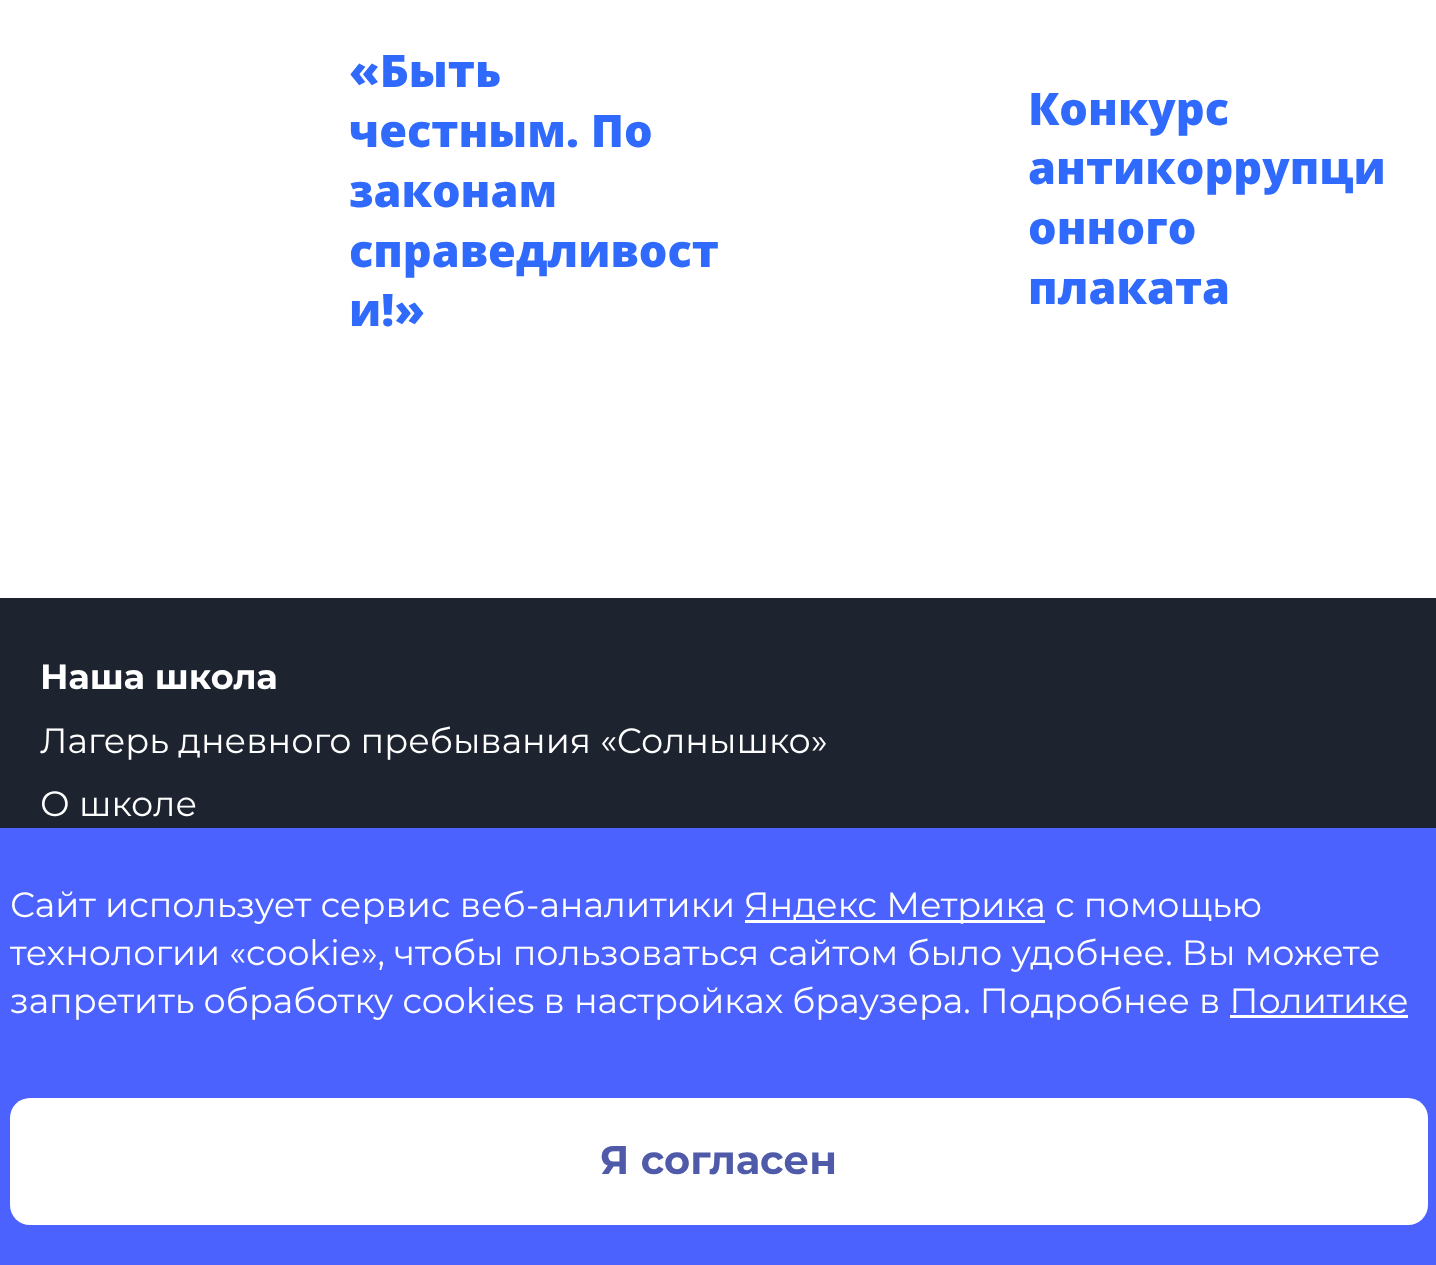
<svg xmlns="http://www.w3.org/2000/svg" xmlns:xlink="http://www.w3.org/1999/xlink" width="1436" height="1265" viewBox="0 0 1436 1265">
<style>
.cls-1{font:800 45px Open Sans;fill:#306afd}
.cls-2{font:bold 35px Montserrat;fill:#ffffff}
.cls-3{font:35px Montserrat;fill:#ffffff}
.cls-4{font:bold 40px Montserrat;fill:#4f5aa8}
</style>
<rect width="100%" height="100%" fill="#ffffff"/>
<rect fill="#1d232f" x="0" y="598" width="1436" height="230"/>
<rect fill="#4b62ff" x="0" y="828" width="1436" height="437"/>
<rect fill="#ffffff" x="745" y="920" width="300" height="3"/>
<rect fill="#ffffff" x="1230" y="1015" width="178" height="3"/>
<rect fill="#ffffff" x="10" y="1098" width="1418" height="127" rx="20"/>
<text class="cls-1"><tspan x="349" y="87">«Быть</tspan><tspan x="349" y="147">честным. По</tspan><tspan x="349" y="207">законам</tspan><tspan x="349" y="267">справедливост</tspan><tspan x="349" y="326">и!»</tspan></text>
<text class="cls-1"><tspan x="1028" y="125">Конкурс</tspan><tspan x="1028" y="184">антикоррупци</tspan><tspan x="1028" y="244">онного</tspan><tspan x="1028" y="304">плаката</tspan></text>
<text class="cls-2" x="40" y="689">Наша школа</text>
<text class="cls-3"><tspan x="40" y="753">Лагерь дневного пребывания «Солнышко»</tspan><tspan x="40" y="816">О школе</tspan></text>
<text class="cls-3" x="10" y="917">Сайт использует сервис веб-аналитики</text>
<text class="cls-3" x="744" y="917">Яндекс Метрика с помощью</text>
<text class="cls-3"><tspan x="10" y="965">технологии «cookie», чтобы пользоваться сайтом было удобнее. Вы можете</tspan><tspan x="10" y="1013">запретить обработку cookies в настройках браузера. Подробнее в Политике</tspan></text>
<text class="cls-4" x="600" y="1174">Я согласен</text>
</svg>
